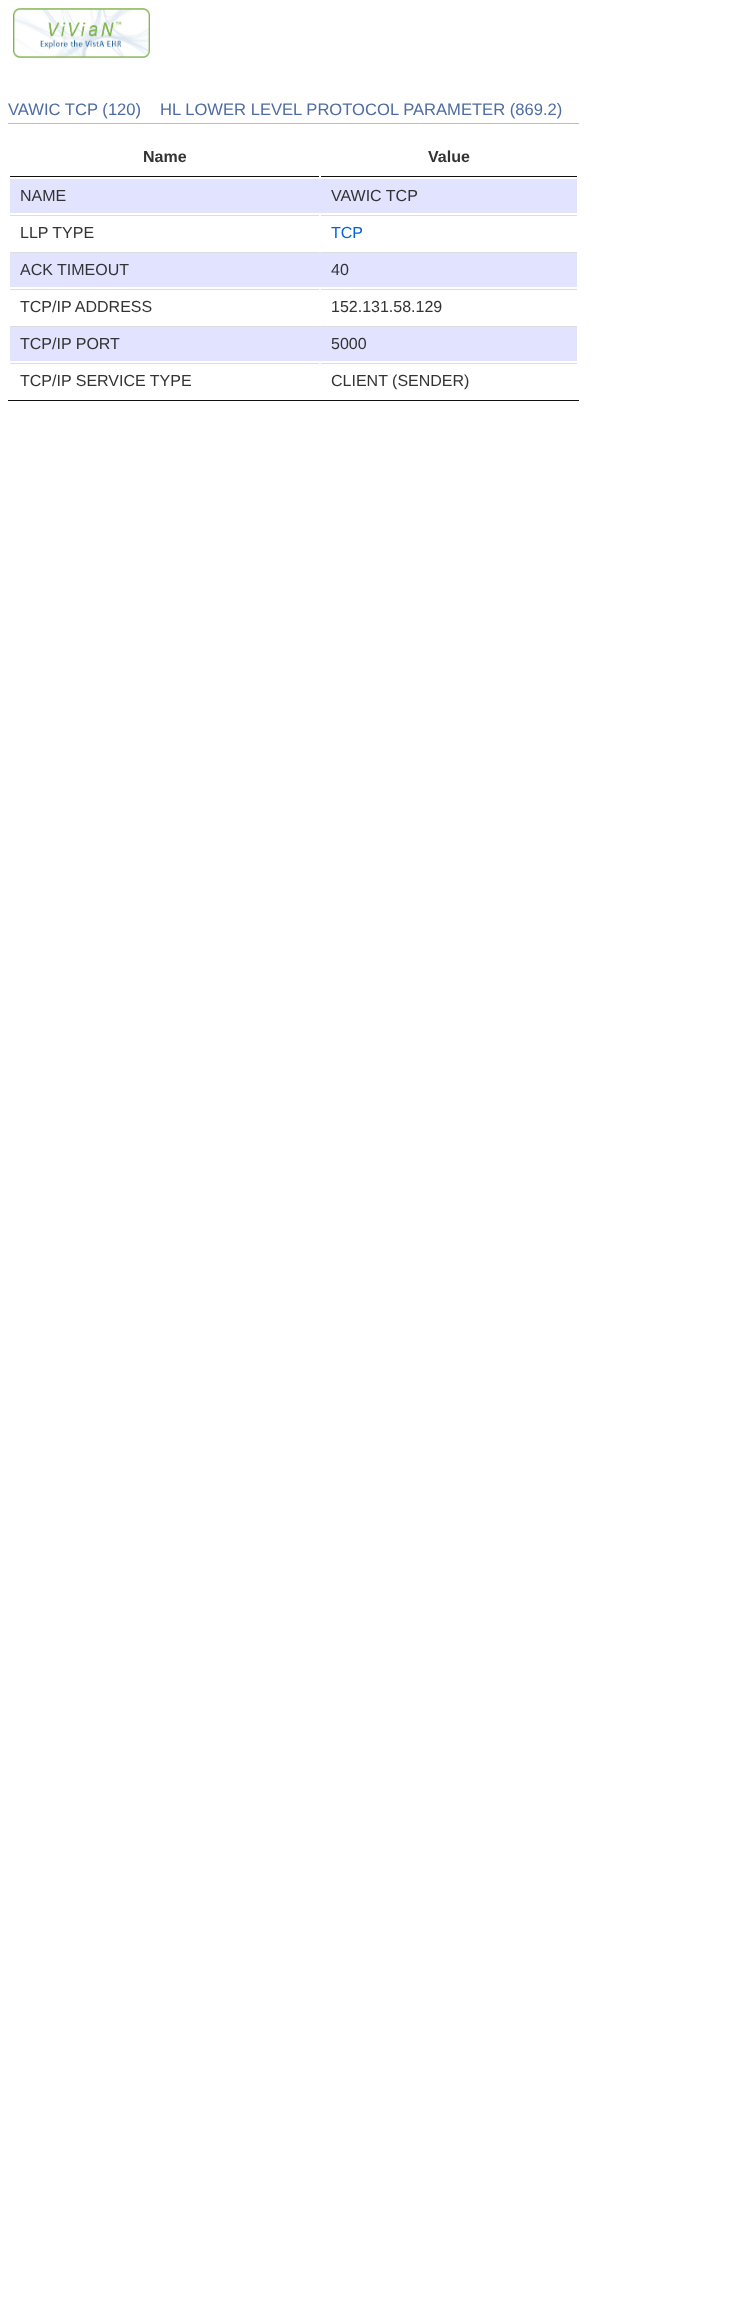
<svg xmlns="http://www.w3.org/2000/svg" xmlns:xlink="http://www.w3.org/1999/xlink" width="730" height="2298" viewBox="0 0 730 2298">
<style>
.cls-1{font:16.6px Liberation Sans;fill:#4e6ca3}
.cls-2{font:bold 16px Liberation Sans;fill:#333333}
.cls-3{font:16px Liberation Sans;fill:#333333}
.cls-4{font:16px Liberation Sans;fill:#0063dc}
</style>
<rect width="100%" height="100%" fill="#ffffff"/>
<image xlink:href="image0.png" x="13" y="8" width="137" height="50"/>
<rect fill="#b0bed9" x="8" y="123" width="571" height="1"/>
<rect fill="#111111" x="8" y="400" width="571" height="1"/>
<rect fill="#111111" x="10" y="176" width="309" height="1"/>
<rect fill="#111111" x="321" y="176" width="256" height="1"/>
<rect fill="#e2e4ff" x="10" y="179" width="567" height="34"/>
<rect fill="#dddddd" x="10" y="215" width="309" height="1"/>
<rect fill="#dddddd" x="321" y="215" width="256" height="1"/>
<rect fill="#e2e4ff" x="10" y="252" width="567" height="35"/>
<rect fill="#dddddd" x="10" y="252" width="309" height="1"/>
<rect fill="#dddddd" x="321" y="252" width="256" height="1"/>
<rect fill="#dddddd" x="10" y="289" width="309" height="1"/>
<rect fill="#dddddd" x="321" y="289" width="256" height="1"/>
<rect fill="#e2e4ff" x="10" y="326" width="567" height="35"/>
<rect fill="#dddddd" x="10" y="326" width="309" height="1"/>
<rect fill="#dddddd" x="321" y="326" width="256" height="1"/>
<rect fill="#dddddd" x="10" y="363" width="309" height="1"/>
<rect fill="#dddddd" x="321" y="363" width="256" height="1"/>
<text class="cls-1" x="8" y="115">VAWIC TCP (120)</text>
<text class="cls-1" x="160" y="115">HL LOWER LEVEL PROTOCOL PARAMETER (869.2)</text>
<text class="cls-2" x="143" y="162">Name</text>
<text class="cls-2" x="428" y="162">Value</text>
<text class="cls-3" x="20" y="201">NAME</text>
<text class="cls-3" x="331" y="201">VAWIC TCP</text>
<text class="cls-3" x="20" y="238">LLP TYPE</text>
<text class="cls-4" x="331" y="238">TCP</text>
<text class="cls-3" x="20" y="275">ACK TIMEOUT</text>
<text class="cls-3" x="331" y="275">40</text>
<text class="cls-3" x="20" y="312">TCP/IP ADDRESS</text>
<text class="cls-3" x="331" y="312">152.131.58.129</text>
<text class="cls-3" x="20" y="349">TCP/IP PORT</text>
<text class="cls-3" x="331" y="349">5000</text>
<text class="cls-3" x="20" y="386">TCP/IP SERVICE TYPE</text>
<text class="cls-3" x="331" y="386">CLIENT (SENDER)</text>
</svg>
